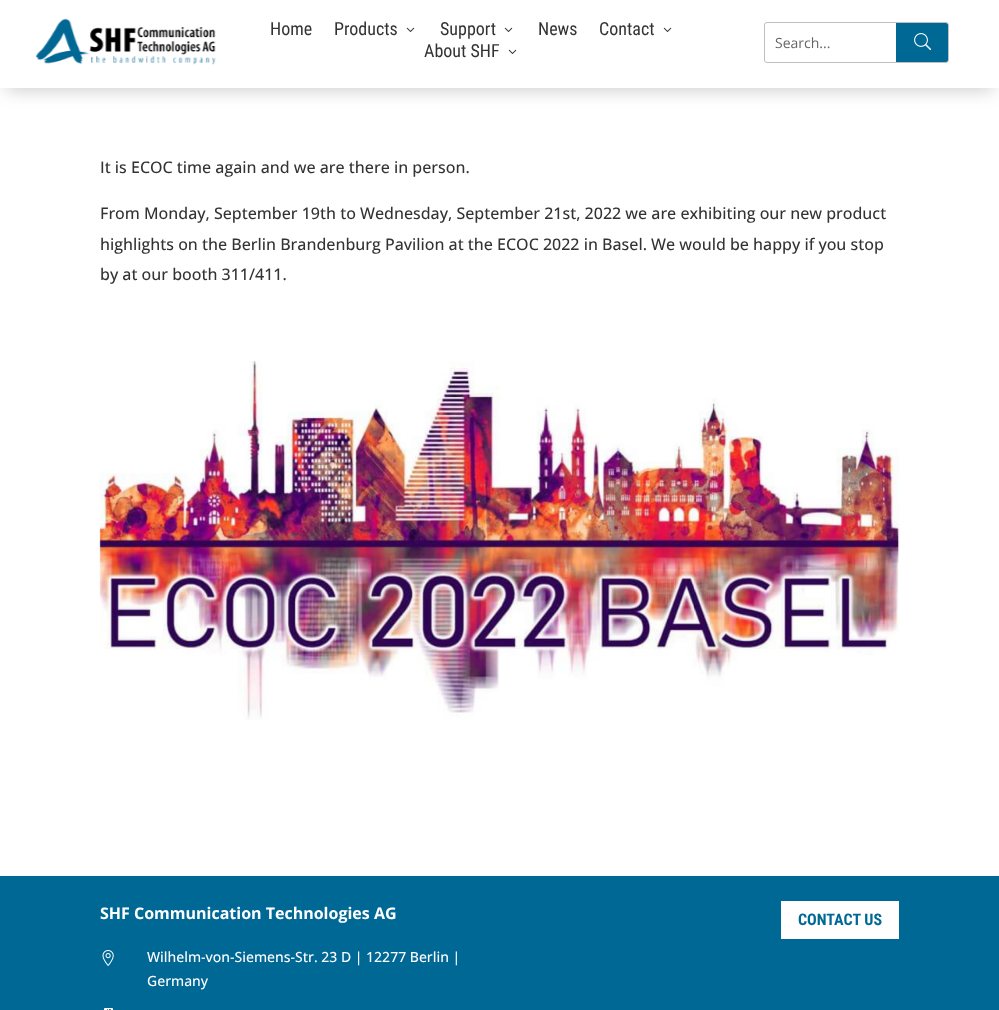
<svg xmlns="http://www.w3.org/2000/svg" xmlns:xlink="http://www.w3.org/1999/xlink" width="999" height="1010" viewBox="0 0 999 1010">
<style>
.cls-1{font:18px Roboto Condensed;fill:#333333}
.cls-2{font:14px Open Sans;fill:#666666}
.cls-3{font:500 16px Open Sans;fill:#333333}
.cls-4{font:bold 16px Open Sans;fill:#ffffff}
.cls-5{font:500 14px Open Sans;fill:#ffffff}
.cls-6{font:bold 16px Roboto Condensed;fill:#006895}
</style>
<rect width="100%" height="100%" fill="#ffffff"/>
<rect fill="#000000" fill-opacity="0.2" filter="blur(9px)" x="6" y="14" width="987" height="76"/>
<rect fill="#ffffff" x="0" y="0" width="999" height="88"/>
<image xlink:href="image0.png" x="36" y="18" width="180" height="47"/>
<image xlink:href="image1.png" x="406" y="27" width="9" height="5"/>
<image xlink:href="image1.png" x="504" y="27" width="9" height="5"/>
<image xlink:href="image1.png" x="663" y="27" width="9" height="5"/>
<image xlink:href="image1.png" x="508" y="49" width="9" height="5"/>
<rect fill="none" stroke="#bfbfbf" x="764.5" y="22.5" width="184" height="40" rx="2.5"/>
<path fill="#006895" d="M896 23H946C947 23 948 24 948 25V60C948 61 947 62 946 62H896Z"/>
<image xlink:href="image2.png" x="914" y="33" width="18" height="18"/>
<image xlink:href="image3.png" x="99" y="361" width="801" height="359"/>
<rect fill="#006895" x="0" y="876" width="999" height="134"/>
<image xlink:href="image4.png" x="102" y="950" width="12" height="16"/>
<image xlink:href="image5.png" x="104" y="1008" width="9" height="2"/>
<rect fill="#ffffff" x="781" y="901" width="118" height="38"/>
<text class="cls-1" x="270" y="35">Home</text>
<text class="cls-1" x="334" y="35">Products</text>
<text class="cls-1" x="440" y="35">Support</text>
<text class="cls-1" x="538" y="35">News</text>
<text class="cls-1" x="599" y="35">Contact</text>
<text class="cls-1" x="424" y="57">About SHF</text>
<text class="cls-2" x="775" y="48">Search...</text>
<text class="cls-3" x="100" y="173">It is ECOC time again and we are there in person.</text>
<text class="cls-3"><tspan x="100" y="219">From Monday, September 19th to Wednesday, September 21st, 2022 we are exhibiting our new product</tspan><tspan x="100" y="250">highlights on the Berlin Brandenburg Pavilion at the ECOC 2022 in Basel. We would be happy if you stop</tspan><tspan x="100" y="280">by at our booth 311/411.</tspan></text>
<text class="cls-4" x="100" y="919">SHF Communication Technologies AG</text>
<text class="cls-5"><tspan x="147" y="962">Wilhelm-von-Siemens-Str. 23 D | 12277 Berlin |</tspan><tspan x="147" y="986">Germany</tspan></text>
<text class="cls-6" x="798" y="925">CONTACT US</text>
</svg>
